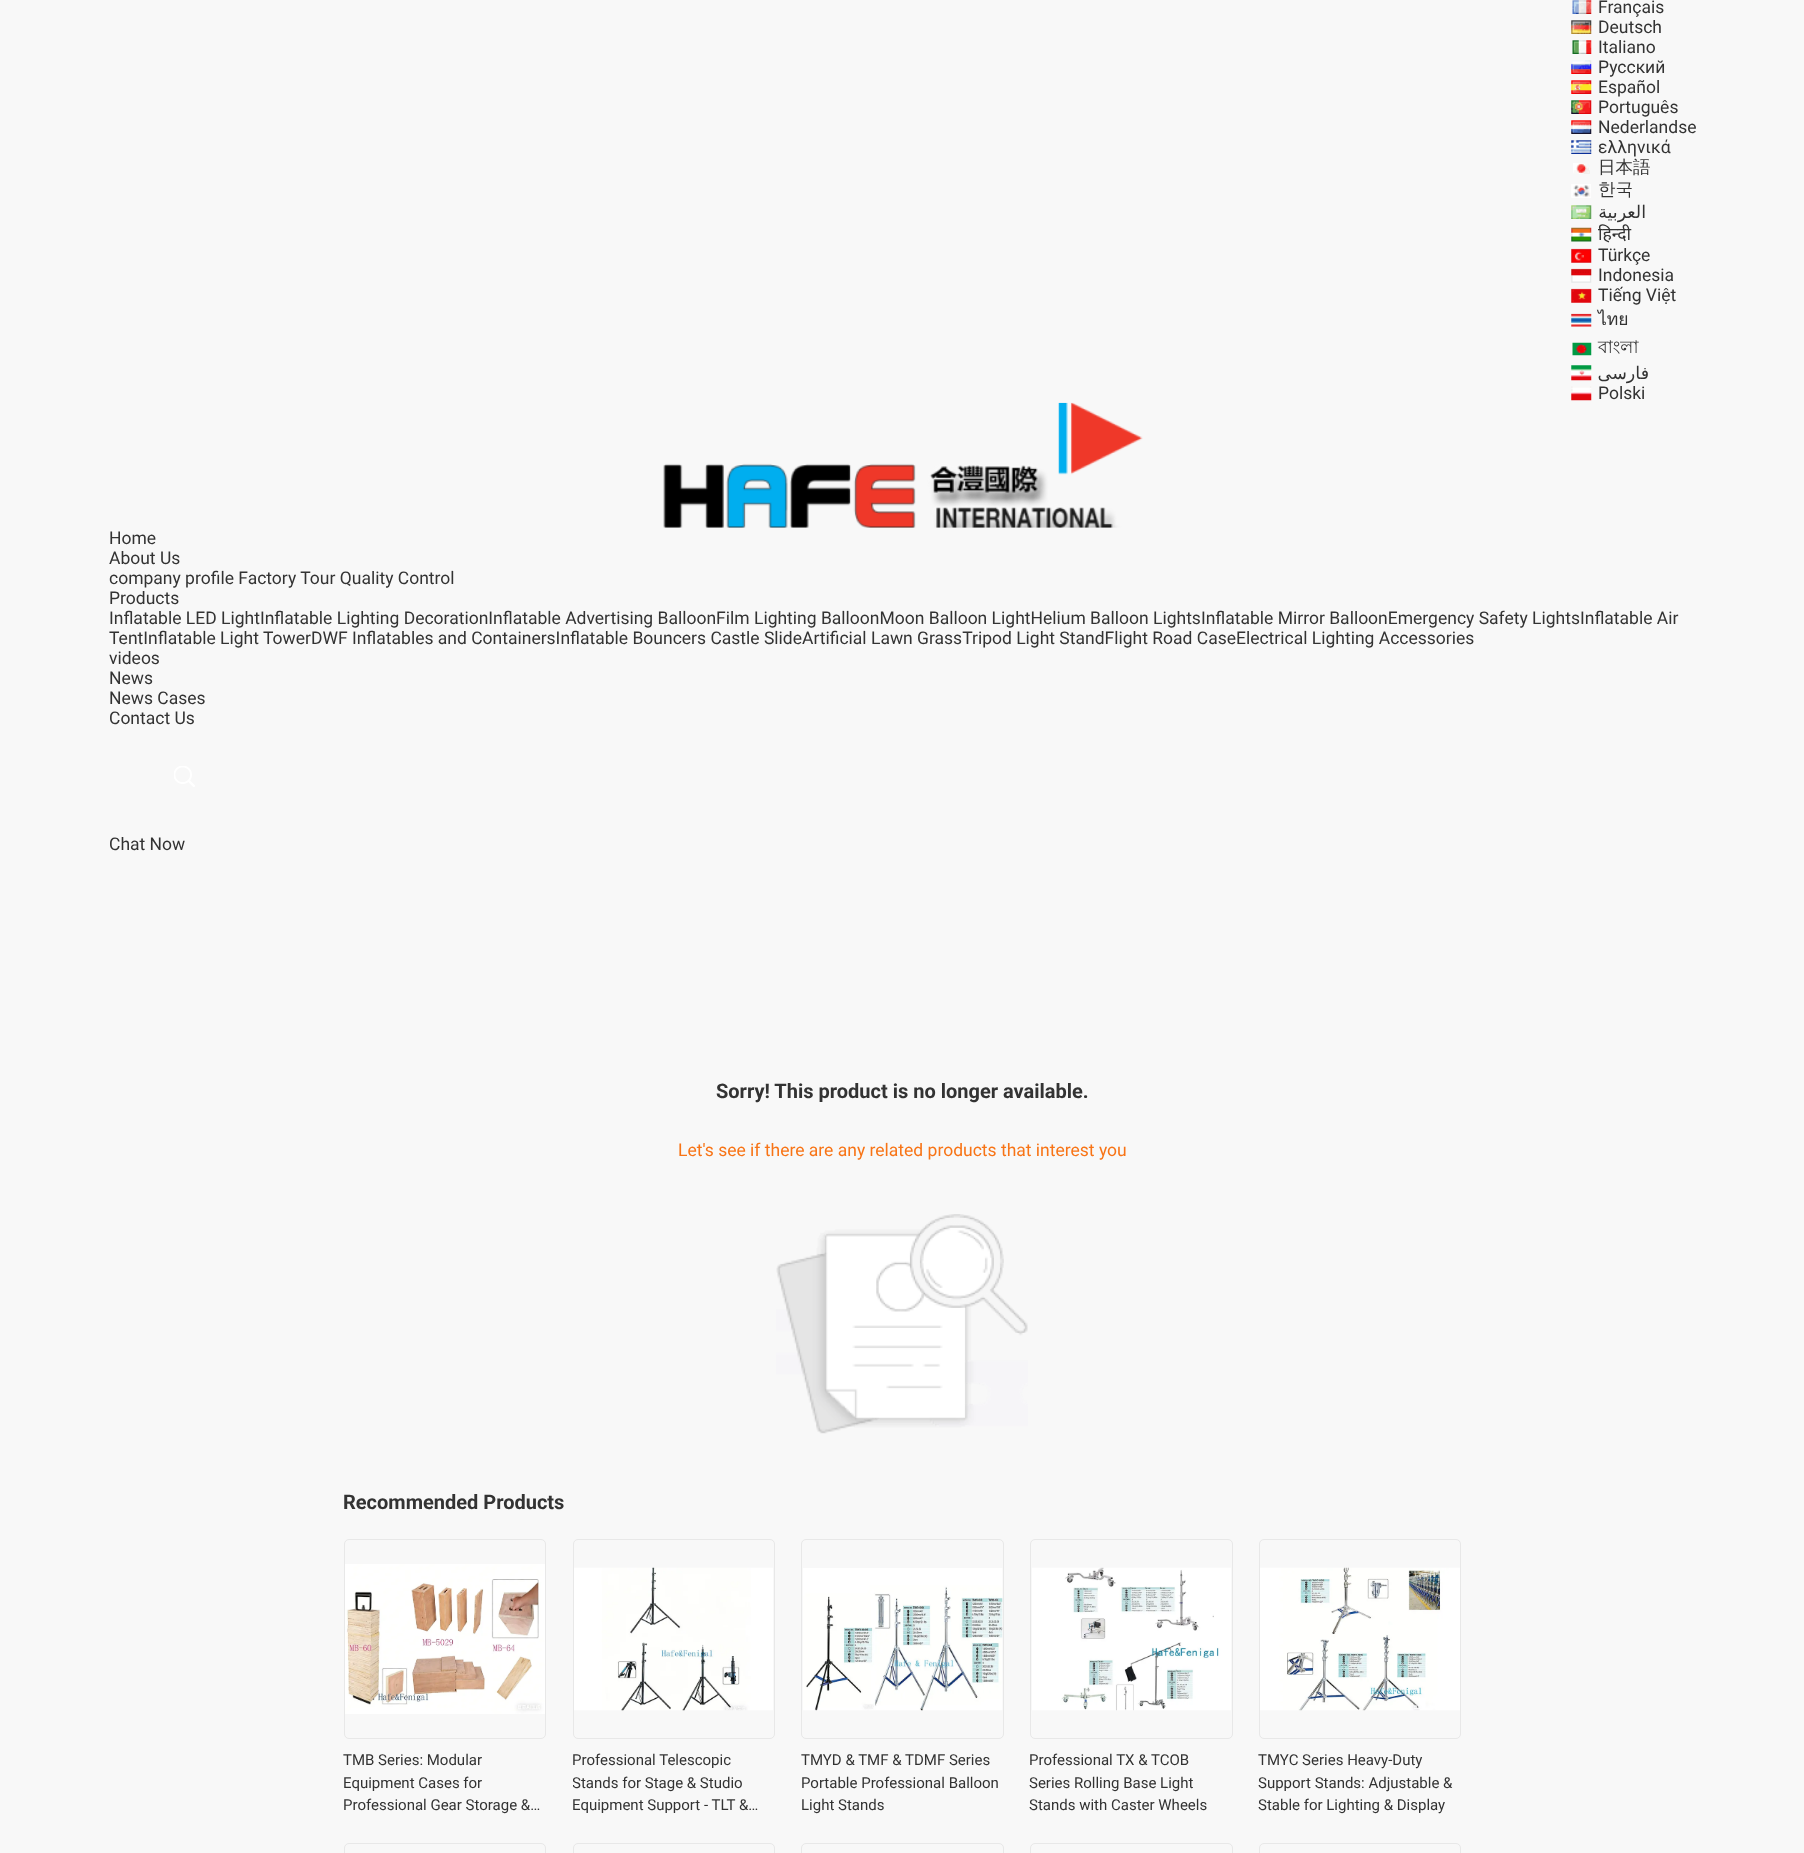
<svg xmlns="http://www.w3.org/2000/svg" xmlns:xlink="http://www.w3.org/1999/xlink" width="1804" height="1853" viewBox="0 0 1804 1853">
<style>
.cls-1{font:17.5px Roboto;fill:#333333}
.cls-2{font:500 17.5px WenQuanYi Zen Hei;fill:#333333}
.cls-3{font:17.5px DejaVu Sans;direction:rtl;fill:#333333}
.cls-4{font:17.5px Noto Sans;fill:#333333}
.cls-5{font:17.5px Loma;fill:#333333}
.cls-6{font:17.5px Lohit Bengali;fill:#333333}
.cls-7{font:bold 20px Roboto;fill:#333333}
.cls-8{font:17.5px Roboto;fill:#f87416}
.cls-9{font:15px Roboto;fill:#333333}
</style>
<defs>
<clipPath id="clip1"><rect x="573" y="1749" width="202" height="67"/></clipPath>
</defs>
<rect width="100%" height="100%" fill="#f8f8f8"/>
<image xlink:href="image0.png" x="1572" y="0" width="20" height="14"/>
<image xlink:href="image1.png" x="1571" y="20" width="21" height="14"/>
<image xlink:href="image2.png" x="1572" y="40" width="20" height="14"/>
<image xlink:href="image3.png" x="1571" y="60" width="21" height="14"/>
<image xlink:href="image4.png" x="1571" y="80" width="21" height="14"/>
<image xlink:href="image5.png" x="1571" y="100" width="21" height="14"/>
<image xlink:href="image6.png" x="1571" y="120" width="21" height="14"/>
<image xlink:href="image7.png" x="1571" y="140" width="21" height="14"/>
<image xlink:href="image8.png" x="1573" y="163" width="17" height="11"/>
<image xlink:href="image9.png" x="1571" y="184" width="20" height="14"/>
<image xlink:href="image10.png" x="1571" y="205" width="21" height="14"/>
<image xlink:href="image11.png" x="1571" y="227" width="21" height="15"/>
<image xlink:href="image12.png" x="1571" y="248" width="21" height="15"/>
<image xlink:href="image13.png" x="1571" y="268" width="21" height="15"/>
<image xlink:href="image14.png" x="1571" y="288" width="21" height="15"/>
<image xlink:href="image15.png" x="1571" y="313" width="21" height="14"/>
<image xlink:href="image16.png" x="1572" y="342" width="20" height="14"/>
<image xlink:href="image17.png" x="1571" y="365" width="21" height="16"/>
<image xlink:href="image18.png" x="1571" y="386" width="21" height="15"/>
<image xlink:href="image19.png" x="663" y="402" width="480" height="126"/>
<image xlink:href="image20.png" x="174" y="766" width="21" height="21"/>
<image xlink:href="image21.png" x="776" y="1214" width="252" height="220"/>
<rect fill="none" stroke="#e8e8e8" x="344.5" y="1539.5" width="201" height="199" rx="4.5"/>
<image xlink:href="image22.png" x="345" y="1564" width="200" height="150"/>
<rect fill="none" stroke="#e8e8e8" x="573.5" y="1539.5" width="201" height="199" rx="4.5"/>
<image xlink:href="image23.png" x="574" y="1567" width="199" height="144"/>
<rect fill="none" stroke="#e8e8e8" x="801.5" y="1539.5" width="202" height="199" rx="4.5"/>
<image xlink:href="image24.png" x="803" y="1568" width="200" height="143"/>
<rect fill="none" stroke="#e8e8e8" x="1030.5" y="1539.5" width="202" height="199" rx="4.5"/>
<image xlink:href="image25.png" x="1032" y="1567" width="199" height="144"/>
<rect fill="none" stroke="#e8e8e8" x="1259.5" y="1539.5" width="201" height="199" rx="4.5"/>
<image xlink:href="image26.png" x="1260" y="1567" width="200" height="144"/>
<rect fill="none" stroke="#e8e8e8" x="344.5" y="1843.5" width="201" height="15" rx="4.5"/>
<rect fill="none" stroke="#e8e8e8" x="573.5" y="1843.5" width="201" height="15" rx="4.5"/>
<rect fill="none" stroke="#e8e8e8" x="801.5" y="1843.5" width="202" height="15" rx="4.5"/>
<rect fill="none" stroke="#e8e8e8" x="1030.5" y="1843.5" width="202" height="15" rx="4.5"/>
<rect fill="none" stroke="#e8e8e8" x="1259.5" y="1843.5" width="201" height="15" rx="4.5"/>
<text class="cls-1"><tspan x="1598" y="13">Français</tspan><tspan x="1598" y="33">Deutsch</tspan><tspan x="1598" y="53">Italiano</tspan><tspan x="1598" y="73">Русский</tspan><tspan x="1598" y="93">Español</tspan><tspan x="1598" y="113">Português</tspan><tspan x="1598" y="133">Nederlandse</tspan><tspan x="1598" y="153">ελληνικά</tspan></text>
<text class="cls-2"><tspan x="1598" y="173">日本語</tspan><tspan x="1598" y="195">한국</tspan></text>
<text class="cls-3" x="1646" y="218">العربية</text>
<text class="cls-4" x="1598" y="240">हिन्दी</text>
<text class="cls-1"><tspan x="1598" y="261">Türkçe</tspan><tspan x="1598" y="281">Indonesia</tspan><tspan x="1598" y="301">Tiếng Việt</tspan></text>
<text class="cls-5" x="1598" y="325">ไทย</text>
<text class="cls-6" x="1598" y="353">বাংলা</text>
<text class="cls-3" x="1649" y="379">فارسی</text>
<text class="cls-1" x="1598" y="399">Polski</text>
<text class="cls-1"><tspan x="109" y="544">Home</tspan><tspan x="109" y="564">About Us</tspan><tspan x="109" y="584">company profile Factory Tour Quality Control</tspan><tspan x="109" y="604">Products</tspan><tspan x="109" y="624">Inflatable LED LightInflatable Lighting DecorationInflatable Advertising BalloonFilm Lighting BalloonMoon Balloon LightHelium Balloon LightsInflatable Mirror BalloonEmergency Safety LightsInflatable Air</tspan><tspan x="109" y="644">TentInflatable Light TowerDWF Inflatables and ContainersInflatable Bouncers Castle SlideArtificial Lawn GrassTripod Light StandFlight Road CaseElectrical Lighting Accessories</tspan><tspan x="109" y="664">videos</tspan><tspan x="109" y="684">News</tspan><tspan x="109" y="704">News Cases</tspan><tspan x="109" y="724">Contact Us</tspan></text>
<text class="cls-1" x="109" y="850">Chat Now</text>
<text class="cls-7" x="716" y="1098">Sorry! This product is no longer available.</text>
<text class="cls-8" x="678" y="1156">Let's see if there are any related products that interest you</text>
<text class="cls-7" x="343" y="1509">Recommended Products</text>
<text class="cls-9"><tspan x="343" y="1765">TMB Series: Modular</tspan><tspan x="343" y="1788">Equipment Cases for</tspan><tspan x="343" y="1810">Professional Gear Storage &amp;…</tspan></text>
<text class="cls-9" x="572" y="1765">Professional Telescopic</text>
<g clip-path="url(#clip1)">
<text class="cls-9" x="572" y="1788">Stands for Stage &amp; Studio</text>
</g>
<text class="cls-9" x="572" y="1810">Equipment Support - TLT &amp;…</text>
<text class="cls-9"><tspan x="801" y="1765">TMYD &amp; TMF &amp; TDMF Series</tspan><tspan x="801" y="1788">Portable Professional Balloon</tspan><tspan x="801" y="1810">Light Stands</tspan></text>
<text class="cls-9"><tspan x="1029" y="1765">Professional TX &amp; TCOB</tspan><tspan x="1029" y="1788">Series Rolling Base Light</tspan><tspan x="1029" y="1810">Stands with Caster Wheels</tspan></text>
<text class="cls-9"><tspan x="1258" y="1765">TMYC Series Heavy-Duty</tspan><tspan x="1258" y="1788">Support Stands: Adjustable &amp;</tspan><tspan x="1258" y="1810">Stable for Lighting &amp; Display</tspan></text>
</svg>
